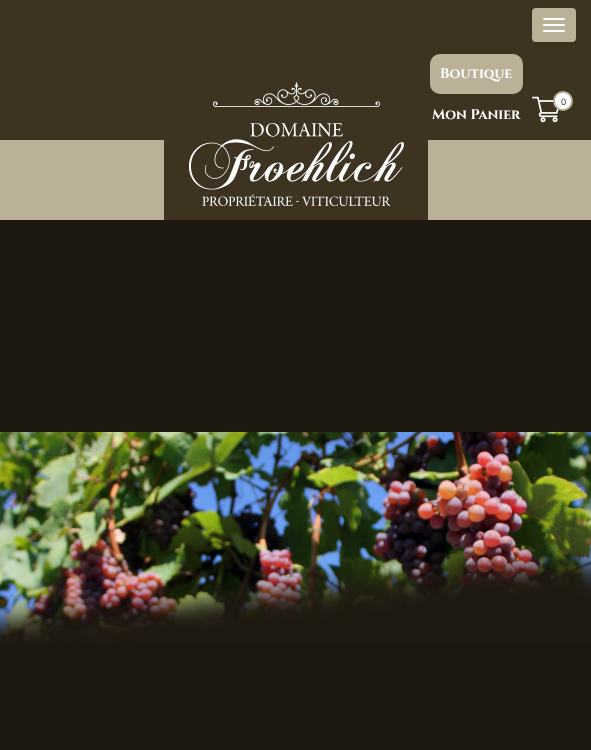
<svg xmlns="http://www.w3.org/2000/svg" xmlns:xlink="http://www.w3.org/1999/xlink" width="591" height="750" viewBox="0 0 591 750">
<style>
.cls-1{font:bold 14px Cinzel;fill:#ffffff}
.cls-2{font:9px Open Sans;fill:#1e1910}
</style>
<rect width="100%" height="100%" fill="#3d3321"/>
<rect fill="#bbb199" x="532" y="8" width="44" height="34" rx="4"/>
<rect fill="#ffffff" x="543" y="18" width="22" height="2" rx="1"/>
<rect fill="#ffffff" x="543" y="24" width="22" height="2" rx="1"/>
<rect fill="#ffffff" x="543" y="30" width="22" height="2" rx="1"/>
<rect fill="#bbb199" x="0" y="140" width="591" height="80"/>
<image xlink:href="image0.png" x="164" y="80" width="264" height="140"/>
<rect fill="#bbb199" x="430" y="54" width="93" height="40" rx="10"/>
<image xlink:href="image1.png" x="532" y="96" width="27" height="27"/>
<circle fill="#ffffff" stroke="#bbb199" stroke-width="2" cx="563" cy="101" r="9"/>
<rect fill="#1e1910" x="0" y="220" width="591" height="530"/>
<image xlink:href="image2.png" x="0" y="432" width="591" height="212"/>
<text class="cls-1" x="440" y="78">Boutique</text>
<text class="cls-2" x="561" y="105">0</text>
<text class="cls-1" x="432" y="119">Mon Panier</text>
</svg>
